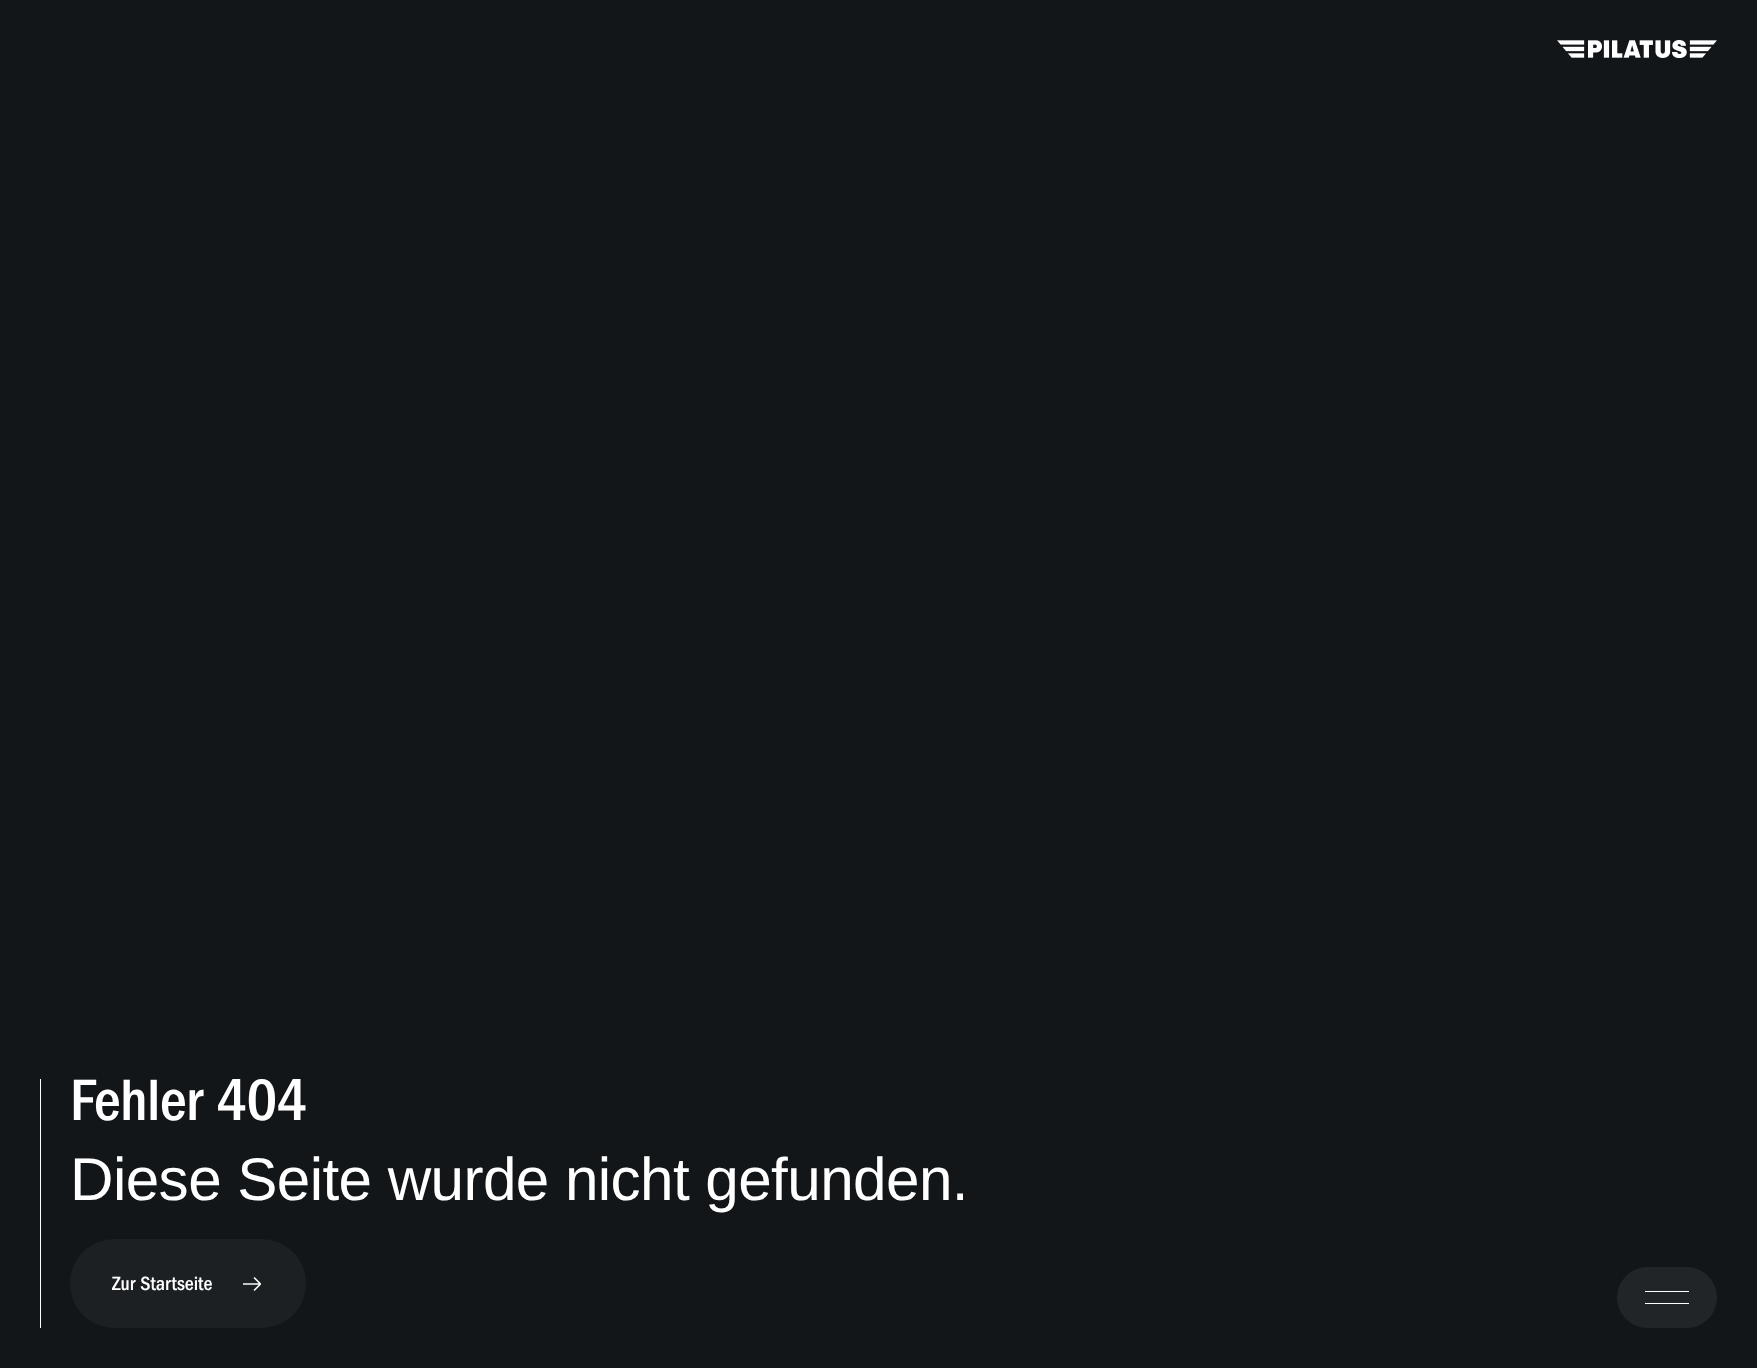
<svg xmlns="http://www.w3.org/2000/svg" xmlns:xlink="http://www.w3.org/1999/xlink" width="1757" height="1368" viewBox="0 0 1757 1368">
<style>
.cls-1{font:500 60.25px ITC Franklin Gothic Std;letter-spacing:-0.6px;fill:#ffffff}
.cls-2{font:60.25px Liberation Sans;letter-spacing:-0.6px;fill:#ffffff}
.cls-3{font:500 20px ITC Franklin Gothic Std;fill:#ffffff}
</style>
<rect width="100%" height="100%" fill="#121619"/>
<image xlink:href="image0.png" x="1557" y="40" width="160" height="18"/>
<rect fill="#ffffff" x="40" y="1079" width="1" height="249"/>
<rect fill="#1c2023" x="70" y="1239" width="236" height="89" rx="44.5"/>
<image xlink:href="image1.png" x="243" y="1277" width="18" height="14"/>
<rect fill="#212528" x="1617" y="1267" width="100" height="61" rx="30.5"/>
<rect fill="#ffffff" x="1645" y="1291" width="44" height="1"/>
<rect fill="#ffffff" x="1645" y="1303" width="44" height="1"/>
<text class="cls-1" x="70" y="1120">Fehler 404</text>
<text class="cls-2" x="70" y="1200">Diese Seite wurde nicht gefunden.</text>
<text class="cls-3" x="112" y="1290">Zur Startseite</text>
</svg>
